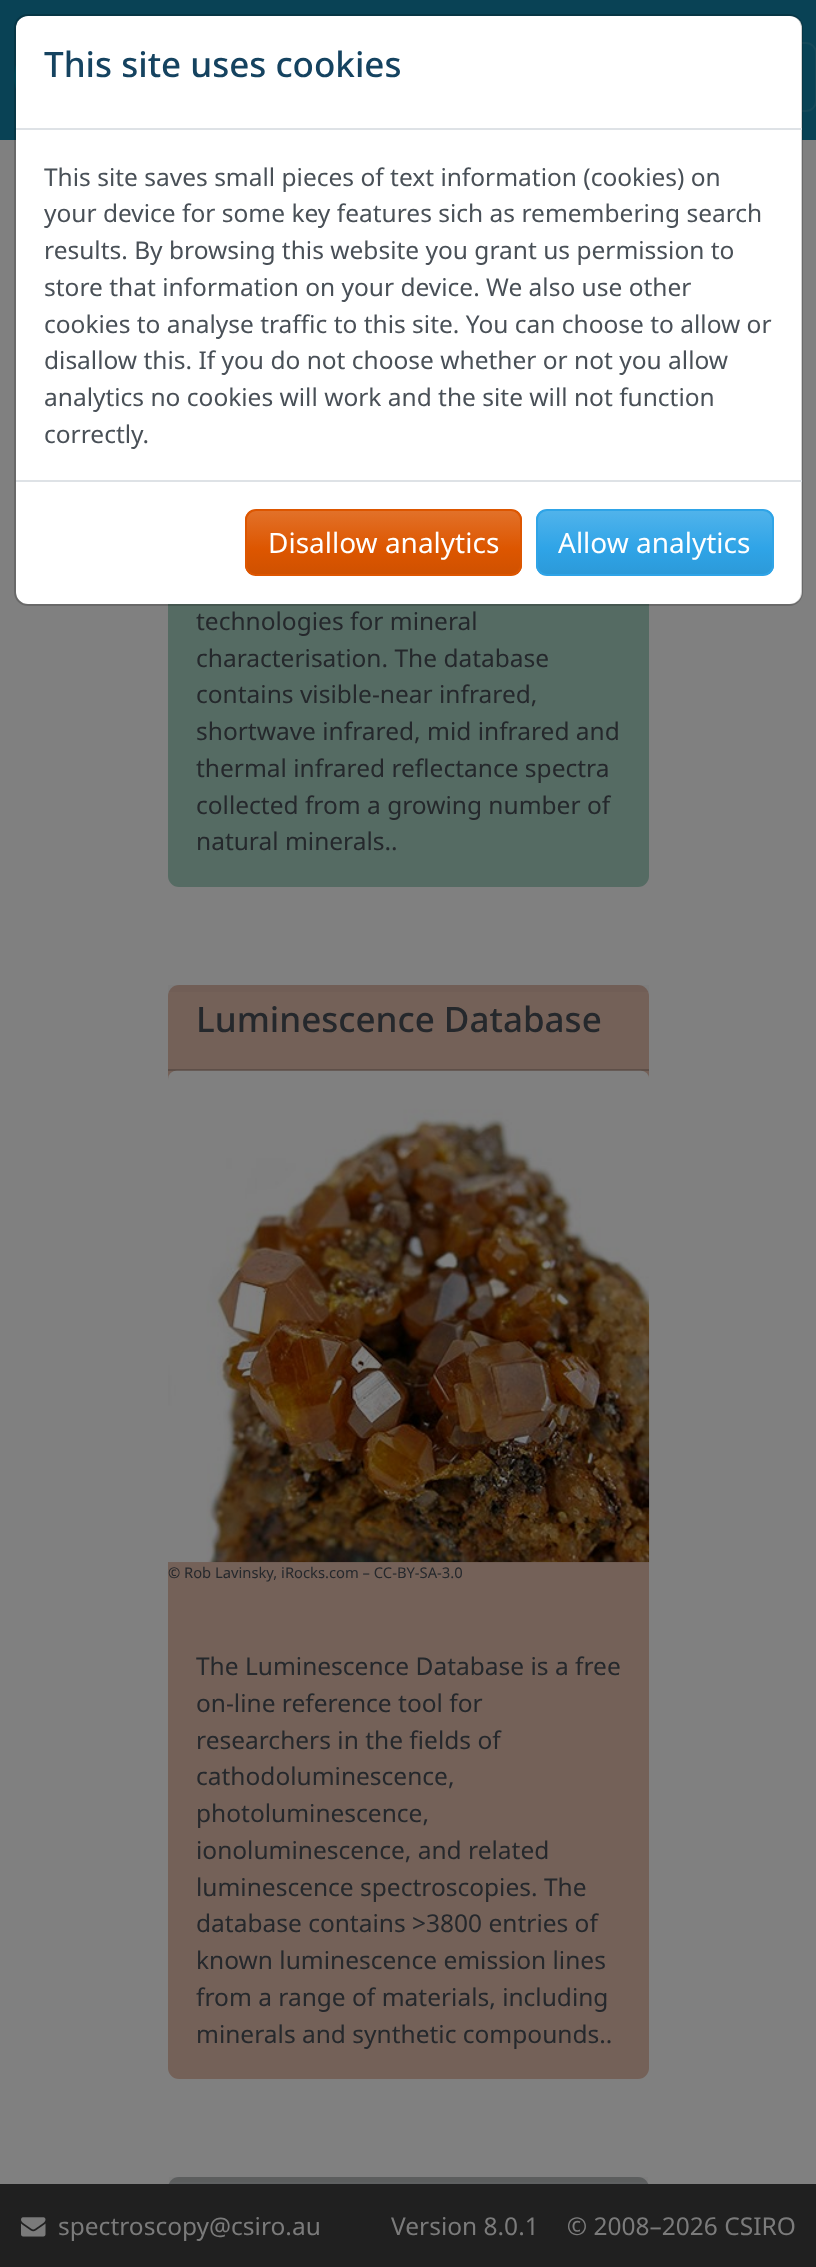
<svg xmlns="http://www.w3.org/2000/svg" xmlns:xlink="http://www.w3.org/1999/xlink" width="816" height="2267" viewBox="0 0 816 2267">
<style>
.cls-1{font:500 35px Noto Sans;fill:#154360}
.cls-2{font:24.5px Noto Sans;fill:#495057}
.cls-3{font:28px Noto Sans;fill:#ffffff}
.cls-4{font:24.5px Noto Sans;fill:#25282c}
.cls-5{font:500 35px Noto Sans;fill:#25282c}
.cls-6{font:14.75px Noto Sans;fill:#25282c}
.cls-7{font:24.5px Noto Sans;fill:#7b7b7b}
</style>
<defs>
<clipPath id="clip1"><rect x="245" y="509" width="277" height="67" rx="11"/></clipPath>
<linearGradient id="g1" gradientUnits="userSpaceOnUse" x1="383" y1="511" x2="383" y2="574"><stop offset="0" stop-color="#e27129"/><stop offset="0.6" stop-color="#dd5600"/><stop offset="1" stop-color="#d05100"/></linearGradient>
<clipPath id="clip2"><rect x="536" y="509" width="238" height="67" rx="11"/></clipPath>
<linearGradient id="g2" gradientUnits="userSpaceOnUse" x1="655" y1="511" x2="655" y2="574"><stop offset="0" stop-color="#50b3eb"/><stop offset="0.6" stop-color="#2fa4e7"/><stop offset="1" stop-color="#2c9ad9"/></linearGradient>
</defs>
<rect width="100%" height="100%" fill="#808080"/>
<rect fill="#556b63" x="168" y="-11" width="481" height="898" rx="11"/>
<rect fill="#094255" x="0" y="0" width="816" height="140"/>
<image xlink:href="image0.png" x="14" y="64" width="2" height="26"/>
<rect fill="none" stroke="#154859" stroke-width="2" x="720" y="43" width="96" height="68" rx="10"/>
<rect fill="#ffffff" x="16" y="16" width="786" height="588" rx="12"/>
<rect fill="none" stroke="#000000" stroke-opacity="0.18" stroke-width="2" x="15" y="15" width="787" height="590" rx="13"/>
<rect fill="#dee2e6" x="16" y="128" width="786" height="2"/>
<rect fill="#dee2e6" x="16" y="480" width="786" height="2"/>
<g clip-path="url(#clip1)">
<rect fill="url(#g1)" x="245" y="511" width="277" height="63"/>
</g>
<rect fill="none" stroke="#dd5600" stroke-width="2" x="246" y="510" width="275" height="65" rx="10"/>
<g clip-path="url(#clip2)">
<rect fill="url(#g2)" x="536" y="511" width="238" height="63"/>
</g>
<rect fill="none" stroke="#2fa4e7" stroke-width="2" x="537" y="510" width="236" height="65" rx="10"/>
<rect fill="#746158" x="168" y="985" width="481" height="1094" rx="11"/>
<rect fill="#25282c" fill-opacity="0.03" x="168" y="985" width="481" height="7"/>
<rect fill="#5e4f48" x="168" y="1069" width="481" height="2"/>
<image xlink:href="image1.png" x="168" y="1070" width="482" height="493"/>
<rect fill="#5e6061" x="168" y="2177" width="481" height="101" rx="11"/>
<rect fill="#25282c" fill-opacity="0.03" x="169" y="2177" width="479" height="5"/>
<rect fill="#202020" x="0" y="2184" width="816" height="83"/>
<image xlink:href="image2.png" x="21" y="2217" width="25" height="20"/>
<text class="cls-1" x="44" y="77">This site uses cookies</text>
<text class="cls-2"><tspan x="44" y="186">This site saves small pieces of text information (cookies) on</tspan><tspan x="44" y="222">your device for some key features sich as remembering search</tspan><tspan x="44" y="259">results. By browsing this website you grant us permission to</tspan><tspan x="44" y="296">store that information on your device. We also use other</tspan><tspan x="44" y="333">cookies to analyse traffic to this site. You can choose to allow or</tspan><tspan x="44" y="369">disallow this. If you do not choose whether or not you allow</tspan><tspan x="44" y="406">analytics no cookies will work and the site will not function</tspan><tspan x="44" y="443">correctly.</tspan></text>
<text class="cls-3" x="268" y="553">Disallow analytics</text>
<text class="cls-3" x="558" y="553">Allow analytics</text>
<text class="cls-4"><tspan x="196" y="630">technologies for mineral</tspan><tspan x="196" y="667">characterisation. The database</tspan><tspan x="196" y="703">contains visible-near infrared,</tspan><tspan x="196" y="740">shortwave infrared, mid infrared and</tspan><tspan x="196" y="777">thermal infrared reflectance spectra</tspan><tspan x="196" y="814">collected from a growing number of</tspan><tspan x="196" y="850">natural minerals..</tspan></text>
<text class="cls-5" x="196" y="1032">Luminescence Database</text>
<text class="cls-6" x="168" y="1578">©</text>
<text class="cls-6" x="184" y="1578">Rob Lavinsky, iRocks.com – CC-BY-SA-3.0</text>
<text class="cls-4"><tspan x="196" y="1675">The Luminescence Database is a free</tspan><tspan x="196" y="1712">on-line reference tool for</tspan><tspan x="196" y="1749">researchers in the fields of</tspan><tspan x="196" y="1785">cathodoluminescence,</tspan><tspan x="196" y="1822">photoluminescence,</tspan><tspan x="196" y="1859">ionoluminescence, and related</tspan><tspan x="196" y="1896">luminescence spectroscopies. The</tspan><tspan x="196" y="1932">database contains &gt;3800 entries of</tspan><tspan x="196" y="1969">known luminescence emission lines</tspan><tspan x="196" y="2006">from a range of materials, including</tspan><tspan x="196" y="2043">minerals and synthetic compounds..</tspan></text>
<text class="cls-7" x="58" y="2235">spectroscopy@csiro.au</text>
<text class="cls-7" x="391" y="2235">Version 8.0.1  © 2008–2026 CSIRO</text>
</svg>
